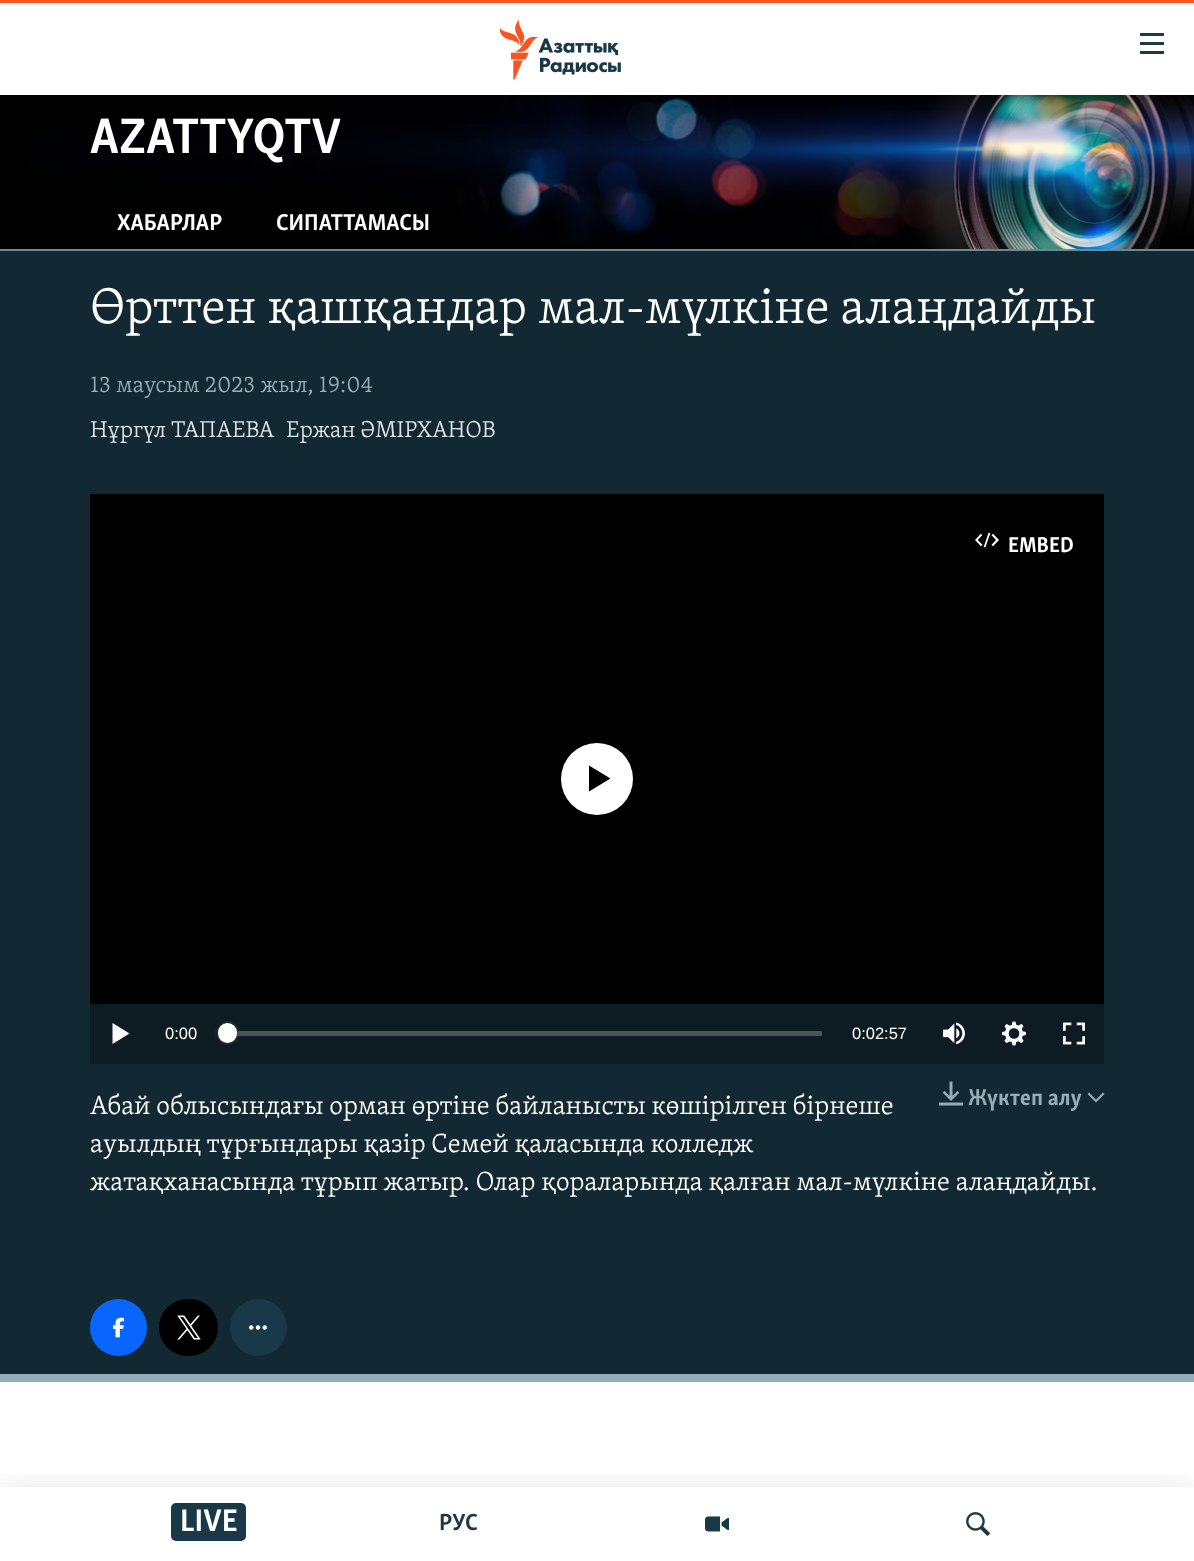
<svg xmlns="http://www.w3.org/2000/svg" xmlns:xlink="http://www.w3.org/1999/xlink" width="1194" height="1561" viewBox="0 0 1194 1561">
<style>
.cls-1{font:bold 51.25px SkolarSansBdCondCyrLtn;fill:#ffffff}
.cls-2{font:bold 23.6px SkolarSansBdCondCyrLtn;fill:#ffffff}
.cls-3{font:300 51.25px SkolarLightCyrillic;fill:#ffffff}
.cls-4{font:300 23.6px SkolarLightCyrillic;fill:#95adb9}
.cls-5{font:300 23.6px SkolarLightCyrillic;fill:#dce4e8}
.cls-6{font:bold 22px SkolarSansBdCondCyrLtn;fill:#ffffff}
.cls-7{font:16.5px Liberation Sans;fill:#ffffff}
.cls-8{font:bold 23.6px SkolarSansBdCondCyrLtn;fill:#95adb9}
.cls-9{font:300 27px SkolarLightCyrillic;fill:#ffffff}
.cls-10{font:bold 32px SkolarSansBdCondCyrLtn;fill:#ffffff}
.cls-11{font:bold 24px SkolarSansBdCondCyrLtn;fill:#1a3948}
</style>
<defs>
<clipPath id="clip1"><rect x="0" y="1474" width="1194" height="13"/></clipPath>
</defs>
<rect width="100%" height="100%" fill="#ffffff"/>
<image xlink:href="image0.png" x="0" y="95" width="1194" height="154"/>
<rect fill="#122832" x="0" y="251" width="1194" height="1123"/>
<rect fill="#678a9b" x="0" y="249" width="1194" height="2"/>
<rect fill="#95adb9" x="0" y="1374" width="1194" height="8"/>
<rect fill="#000000" x="90" y="494" width="1014" height="510"/>
<image xlink:href="image1.png" x="975" y="532" width="24" height="16"/>
<circle fill="#ffffff" cx="597" cy="779" r="36"/>
<path fill="#000000" d="M589 791.5L610.5 778.5L589 765.5Z"/>
<rect fill="#0d1b22" x="90" y="1004" width="1014" height="60"/>
<path fill="#ffffff" d="M112.5 1044L129.5 1033.5L112.5 1023Z"/>
<rect fill="#4a5459" x="236" y="1031" width="586" height="5"/>
<rect fill="#414144" filter="blur(2px)" x="218" y="1023" width="19" height="20" rx="9.5"/>
<rect fill="#ffffff" x="218" y="1023" width="19" height="20" rx="9.5"/>
<image xlink:href="image2.png" x="943" y="1022" width="22" height="23"/>
<image xlink:href="image3.png" x="1002" y="1021" width="24" height="25"/>
<image xlink:href="image4.png" x="1063" y="1022" width="22" height="23"/>
<image xlink:href="image5.png" x="939" y="1081" width="24" height="25"/>
<path fill="#95adb9" d="M1087.5 1094L1096 1102.5L1104.5 1094L1103 1092.5L1096 1099.5L1089 1092.5Z"/>
<circle fill="#0866ff" cx="118.5" cy="1327.5" r="28.5"/>
<image xlink:href="image6.png" x="113" y="1317" width="11" height="21"/>
<rect fill="#000000" x="159" y="1299" width="59" height="57" rx="28.5"/>
<image xlink:href="image7.png" x="177" y="1315" width="24" height="25"/>
<circle fill="#1a3948" cx="258.5" cy="1327.5" r="28.5"/>
<image xlink:href="image8.png" x="249" y="1325" width="18" height="5"/>
<rect fill="#000000" fill-opacity="0.1" filter="blur(15px)" x="0" y="0" width="1194" height="95"/>
<rect fill="#ffffff" x="0" y="3" width="1194" height="92"/>
<rect fill="#fa5420" x="0" y="0" width="1194" height="3"/>
<image xlink:href="image9.png" x="500" y="20" width="121" height="60"/>
<image xlink:href="image10.png" x="1140" y="33" width="24" height="21"/>
<g clip-path="url(#clip1)">
<rect fill="#000000" fill-opacity="0.1" filter="blur(15px)" x="0" y="1487" width="1194" height="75"/>
</g>
<rect fill="#1a3948" x="171" y="1503" width="75" height="38" rx="5"/>
<image xlink:href="image11.png" x="705" y="1516" width="24" height="16"/>
<image xlink:href="image12.png" x="966" y="1512" width="24" height="24"/>
<text class="cls-1" x="90" y="153">AZATTYQTV</text>
<text class="cls-2" x="117" y="230">ХАБАРЛАР</text>
<text class="cls-2" x="276" y="230">СИПАТТАМАСЫ</text>
<text class="cls-3" x="90" y="323">Өрттен қашқандар мал-мүлкіне алаңдайды</text>
<text class="cls-4" x="90" y="392">13 маусым 2023 жыл, 19:04</text>
<text class="cls-5" x="90" y="437">Нұргүл ТАПАЕВА</text>
<text class="cls-5" x="286" y="437">Ержан ӘМІРХАНОВ</text>
<text class="cls-6" x="1008" y="552">EMBED</text>
<text class="cls-7" x="165" y="1039">0:00</text>
<text class="cls-7" x="852" y="1039">0:02:57</text>
<text class="cls-8" x="968" y="1105">Жүктеп алу</text>
<text class="cls-9"><tspan x="90" y="1114">Абай облысындағы орман өртіне байланысты көшірілген бірнеше</tspan><tspan x="90" y="1152">ауылдың тұрғындары қазір Семей қаласында колледж</tspan><tspan x="90" y="1190">жатақханасында тұрып жатыр. Олар қораларында қалған мал-мүлкіне алаңдайды.</tspan></text>
<text class="cls-10" x="180" y="1531">LIVE</text>
<text class="cls-11" x="439" y="1530">РУС</text>
</svg>
